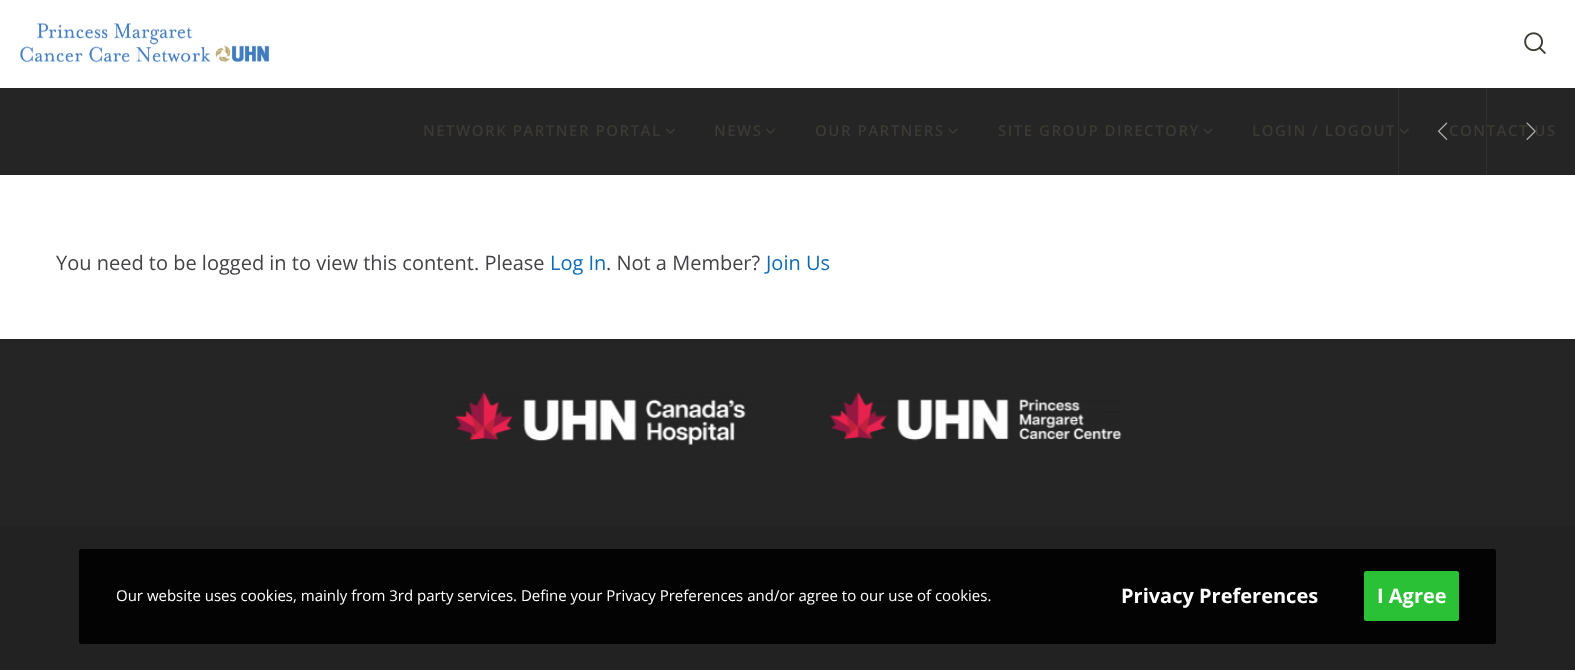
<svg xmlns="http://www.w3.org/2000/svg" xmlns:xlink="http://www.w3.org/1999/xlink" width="1575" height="670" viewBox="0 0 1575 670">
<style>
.cls-1{font:600 15px Open Sans;letter-spacing:1.5px;fill:#3c3a35}
.cls-2{font:20px Open Sans;fill:#434347}
.cls-3{font:20px Open Sans;fill:#0d6cb5}
.cls-4{font:15px Open Sans;fill:#ffffff}
.cls-5{font:bold 20px Open Sans;fill:#ffffff}
</style>
<rect width="100%" height="100%" fill="#252525"/>
<rect fill="#ffffff" x="0" y="0" width="1575" height="88"/>
<image xlink:href="image0.png" x="20" y="23" width="250" height="40"/>
<image xlink:href="image1.png" x="1524" y="32" width="22" height="22"/>
<image xlink:href="image2.png" x="666" y="128" width="9" height="6"/>
<image xlink:href="image2.png" x="766" y="128" width="9" height="6"/>
<image xlink:href="image3.png" x="948" y="128" width="10" height="6"/>
<image xlink:href="image3.png" x="1203" y="128" width="10" height="6"/>
<image xlink:href="image4.png" x="1399" y="128" width="10" height="6"/>
<rect fill="#ffffff" x="0" y="175" width="1575" height="164"/>
<rect fill="#303030" x="1398" y="88" width="1" height="87"/>
<image xlink:href="image5.png" x="1437" y="122" width="11" height="18"/>
<rect fill="#303030" x="1486" y="88" width="1" height="87"/>
<image xlink:href="image6.png" x="1526" y="122" width="10" height="18"/>
<image xlink:href="image7.png" x="454" y="392" width="292" height="53"/>
<image xlink:href="image8.png" x="829" y="392" width="293" height="49"/>
<rect fill="#222222" x="0" y="526" width="1575" height="144"/>
<rect fill="#000000" fill-opacity="0.9" x="79" y="549" width="1417" height="95" rx="2.5"/>
<rect fill="#2bc137" x="1364" y="571" width="95" height="50" rx="2.5"/>
<text class="cls-1" x="423" y="136">NETWORK PARTNER PORTAL</text>
<text class="cls-1" x="714" y="136">NEWS</text>
<text class="cls-1" x="815" y="136">OUR PARTNERS</text>
<text class="cls-1" x="998" y="136">SITE GROUP DIRECTORY</text>
<text class="cls-1" x="1252" y="136">LOGIN / LOGOUT</text>
<text class="cls-1" x="1449" y="136">CONTACT US</text>
<text class="cls-2" x="56" y="270">You need to be logged in to view this content. Please</text>
<text class="cls-3" x="550" y="270">Log In</text>
<text class="cls-2" x="606" y="270">. Not a Member?</text>
<text class="cls-3" x="766" y="270">Join Us</text>
<text class="cls-4" x="116" y="601">Our website uses cookies, mainly from 3rd party services. Define your Privacy Preferences and/or agree to our use of cookies.</text>
<text class="cls-5" x="1121" y="603">Privacy Preferences</text>
<text class="cls-5" x="1377" y="603">I Agree</text>
</svg>
